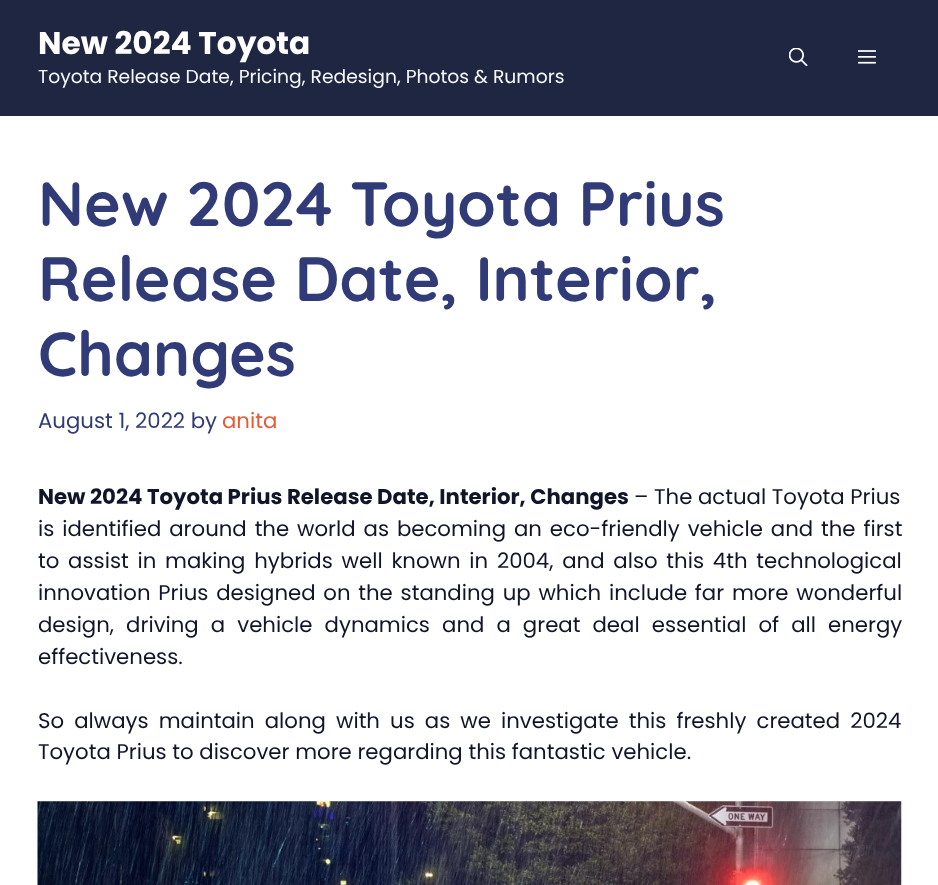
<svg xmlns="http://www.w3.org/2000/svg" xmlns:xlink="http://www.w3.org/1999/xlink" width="938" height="885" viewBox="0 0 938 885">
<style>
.cls-1{font:bold 31.25px Poppins;fill:#ffffff}
.cls-2{font:18.75px Poppins;fill:#f7f8f9}
.cls-3{font:bold 62.5px Quicksand;fill:#313b77}
.cls-4{font:21.25px Poppins;fill:#313b77}
.cls-5{font:21.25px Poppins;fill:#e55934}
.cls-6{font:bold 21.25px Poppins;fill:#101528}
.cls-7{font:21.25px Poppins;fill:#101528}
</style>
<rect width="100%" height="100%" fill="#ffffff"/>
<rect fill="#1f2641" x="0" y="0" width="938" height="116"/>
<image xlink:href="image0.png" x="789" y="48" width="19" height="18"/>
<image xlink:href="image1.png" x="858" y="50" width="18" height="14"/>
<image xlink:href="image2.png" x="37" y="801" width="865" height="84"/>
<text class="cls-1" x="38" y="54">New 2024 Toyota</text>
<text class="cls-2" x="38" y="83">Toyota Release Date, Pricing, Redesign, Photos &amp; Rumors</text>
<text class="cls-3"><tspan x="38" y="226">New 2024 Toyota Prius</tspan><tspan x="38" y="301">Release Date, Interior,</tspan><tspan x="38" y="376">Changes</tspan></text>
<text class="cls-4" x="38" y="428">August 1, 2022 by</text>
<text class="cls-5" x="222" y="428">anita</text>
<text class="cls-6" x="38" y="504">New 2024 Toyota Prius Release Date, Interior, Changes</text>
<text class="cls-7" x="634" y="504">– The actual Toyota Prius</text>
<text class="cls-7"><tspan x="38" y="536" word-spacing="2.25">is identified around the world as becoming an eco-friendly vehicle and the first</tspan><tspan x="38" y="568" word-spacing="3.1">to assist in making hybrids well known in 2004, and also this 4th technological</tspan><tspan x="38" y="600" word-spacing="2.1">innovation Prius designed on the standing up which include far more wonderful</tspan><tspan x="38" y="632" word-spacing="6.4">design, driving a vehicle dynamics and a great deal essential of all energy</tspan><tspan x="38" y="664">effectiveness.</tspan></text>
<text class="cls-7"><tspan x="38" y="728" word-spacing="4.4">So always maintain along with us as we investigate this freshly created 2024</tspan><tspan x="38" y="759">Toyota Prius to discover more regarding this fantastic vehicle.</tspan></text>
</svg>
